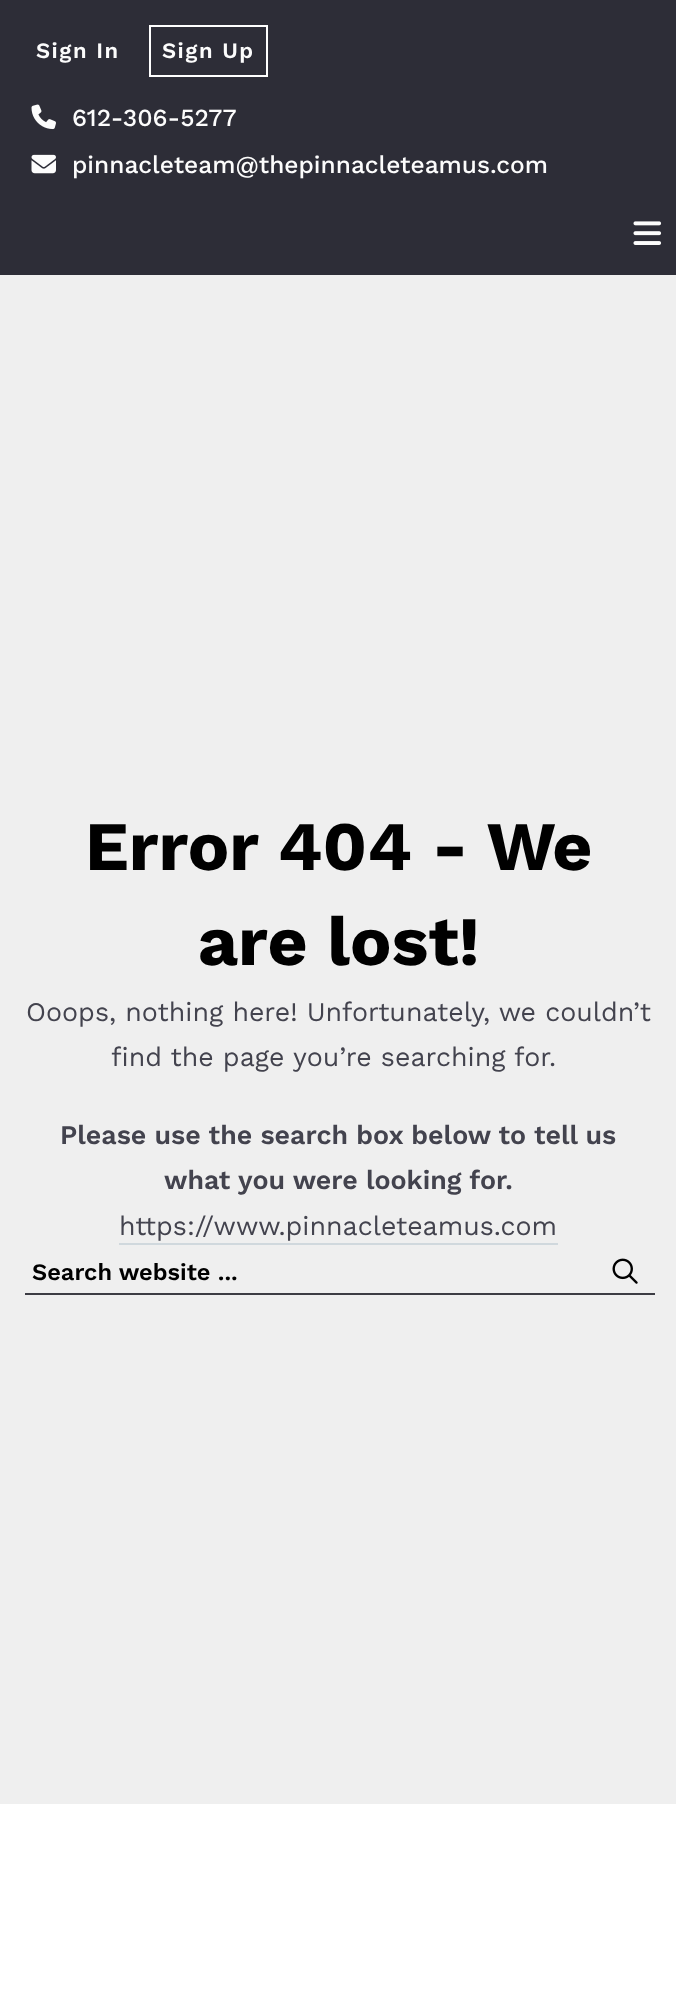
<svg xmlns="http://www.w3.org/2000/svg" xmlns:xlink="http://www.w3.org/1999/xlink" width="676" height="1997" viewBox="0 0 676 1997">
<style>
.cls-1{font:600 22px Work Sans;letter-spacing:1.5px;fill:#fcfcfc}
.cls-2{font:500 24.5px Work Sans;fill:#fcfcfc}
.cls-3{font:bold 69.25px Work Sans;fill:#000000}
.cls-4{font:26.75px Work Sans;fill:#43434e}
.cls-5{font:600 26.75px Work Sans;fill:#43434e}
.cls-6{font:600 23.6px Work Sans;fill:#000000}
</style>
<rect width="100%" height="100%" fill="#ffffff"/>
<rect fill="#2d2d37" x="0" y="0" width="676" height="275"/>
<rect fill="none" stroke="#ffffff" stroke-width="2" x="150" y="26" width="117" height="50"/>
<image xlink:href="image0.png" x="31" y="104" width="25" height="26"/>
<image xlink:href="image1.png" x="31" y="154" width="25" height="20"/>
<image xlink:href="image2.png" x="633" y="221" width="29" height="24"/>
<rect fill="#efefef" x="0" y="275" width="676" height="1529"/>
<rect fill="#d0d8dd" x="119" y="1243" width="439" height="2"/>
<rect fill="#3c3c44" x="25" y="1293" width="630" height="2"/>
<image xlink:href="image3.png" x="612" y="1258" width="26" height="26"/>
<text class="cls-1" x="36" y="58">Sign In</text>
<text class="cls-1" x="162" y="58">Sign Up</text>
<text class="cls-2"><tspan x="72" y="126">612-306-5277</tspan><tspan x="72" y="173">pinnacleteam@thepinnacleteamus.com</tspan></text>
<text class="cls-3" x="85" y="870">Error 404 - We</text>
<text class="cls-3" x="198" y="965">are lost!</text>
<text class="cls-4" x="26" y="1021">Ooops, nothing here! Unfortunately, we couldn’t</text>
<text class="cls-4" x="111" y="1066">find the page you’re searching for.</text>
<text class="cls-5" x="60" y="1144">Please use the search box below to tell us</text>
<text class="cls-5" x="164" y="1189">what you were looking for.</text>
<text class="cls-4" x="119" y="1235">https://www.pinnacleteamus.com</text>
<text class="cls-6" x="32" y="1280">Search website ...</text>
</svg>
